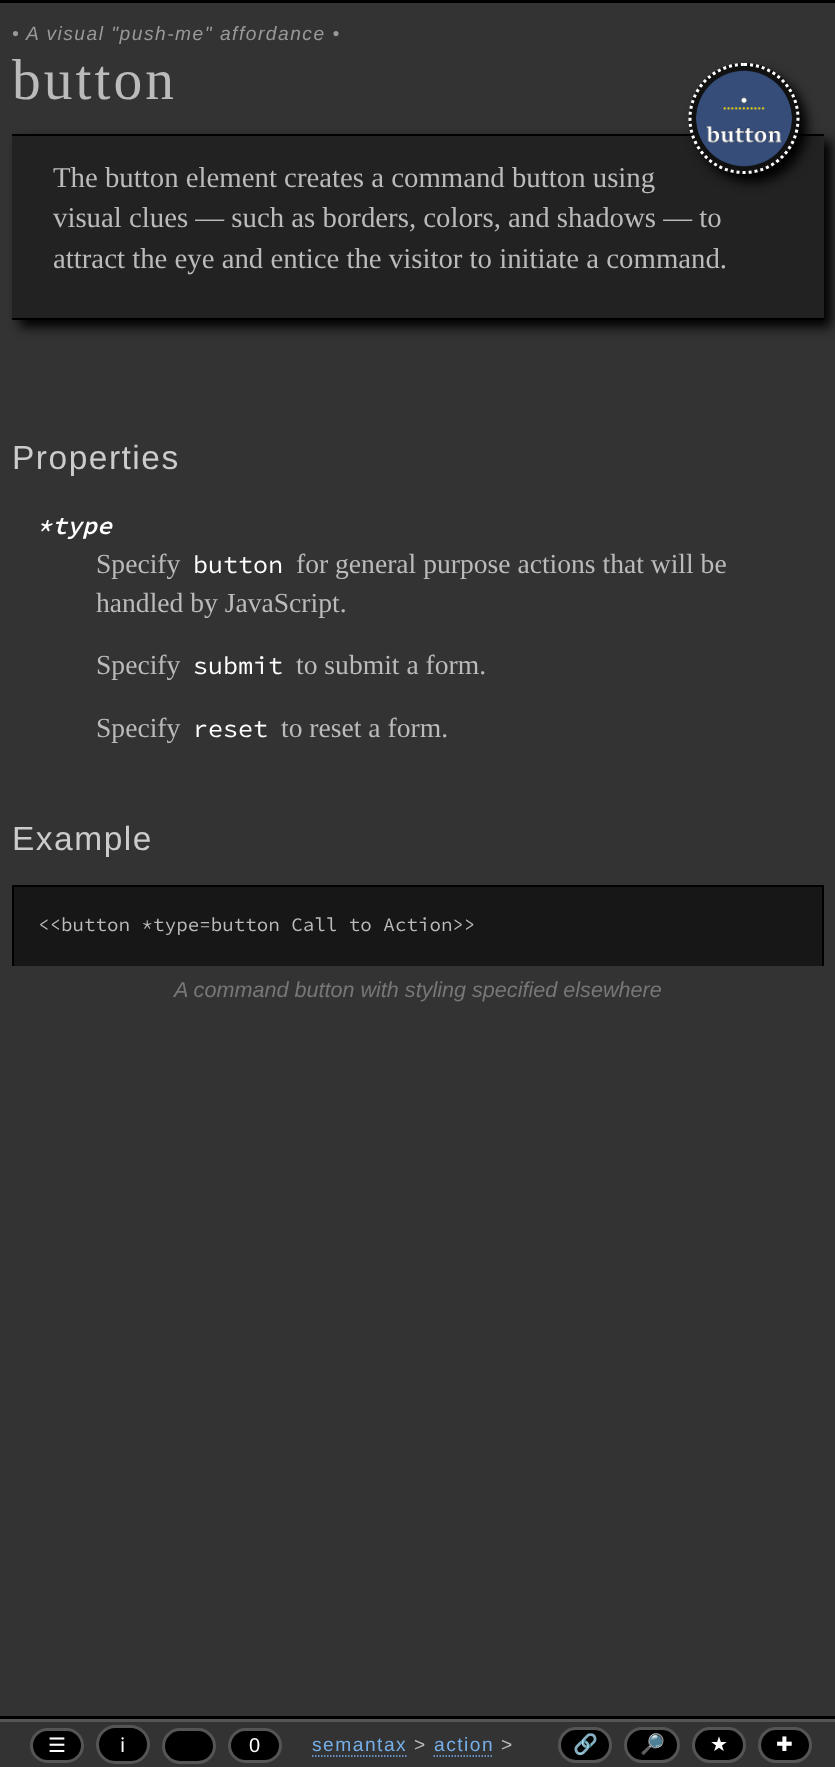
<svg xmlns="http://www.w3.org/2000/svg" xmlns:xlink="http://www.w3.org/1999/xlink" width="835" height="1767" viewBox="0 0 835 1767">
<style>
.cls-1{font:italic 19.2px Liberation Sans;letter-spacing:1.5px;fill:#999999}
.cls-2{font:57.5px Liberation Serif;letter-spacing:3px;fill:#bbbbbb}
.cls-3{font:28.8px Liberation Serif;fill:#bbbbbb}
.cls-4{font:33.5px Liberation Sans;letter-spacing:1.5px;fill:#cccccc}
.cls-5{font:italic 600 25px Source Code Pro;fill:#ffffff}
.cls-6{font:27.6px Liberation Serif;fill:#bbbbbb}
.cls-7{font:25px Source Code Pro;fill:#ffffff}
.cls-8{font:19.2px Source Code Pro;fill:#bbbbbb}
.cls-9{font:italic 21.6px Liberation Sans;fill:#777777}
.cls-10{font:20px DejaVu Sans;fill:#ffffff}
.cls-11{font:20px Noto Sans;fill:#ffffff}
.cls-12{font:20px Liberation Sans;fill:#ffffff}
.cls-13{font:19.2px Liberation Sans;letter-spacing:1.5px;fill:#76afe8}
.cls-14{font:19.2px Liberation Sans;letter-spacing:1.5px;fill:#bbbbbb}
.cls-15{font:20px Noto Color Emoji;fill:#ffffff}
</style>
<rect width="100%" height="100%" fill="#000000"/>
<rect fill="#333333" x="0" y="3" width="835" height="1713"/>
<rect fill="#000000" filter="blur(6px)" x="20" y="141" width="811" height="186"/>
<rect fill="#222222" x="12" y="136" width="812" height="182"/>
<rect fill="#000000" x="12" y="134" width="812" height="2"/>
<rect fill="#000000" x="12" y="318" width="812" height="2"/>
<rect fill="#000000" filter="blur(6px)" x="696" y="71" width="111" height="111" rx="55.5"/>
<circle fill="#111111" cx="744.5" cy="118.5" r="55.5"/>
<path fill="none" stroke="#ffffff" stroke-width="3" stroke-dasharray="3 3" d="M744 64.5C774 64.5 798 88.5 798 118.5C798 148.5 774 172.5 744 172.5C714 172.5 690 148.5 690 118.5C690 88.5 714 64.5 744 64.5Z"/>
<image xlink:href="image0.png" x="696" y="70" width="96" height="97"/>
<rect fill="#171717" x="14" y="887" width="808" height="79"/>
<rect fill="#000000" x="12" y="885" width="812" height="2"/>
<rect fill="#000000" x="822" y="885" width="2" height="81"/>
<rect fill="#000000" x="12" y="885" width="2" height="81"/>
<rect fill="#333333" x="0" y="1722" width="835" height="45"/>
<rect fill="#555555" x="0" y="1719" width="835" height="3"/>
<rect fill="#000000" stroke="#555555" stroke-width="3" x="31.5" y="1729.5" width="51" height="32" rx="16"/>
<rect fill="#000000" stroke="#555555" stroke-width="3" x="97.5" y="1726.5" width="51" height="36" rx="18"/>
<rect fill="#000000" stroke="#555555" stroke-width="3" x="163.5" y="1729.5" width="51" height="33" rx="16.5"/>
<rect fill="#000000" stroke="#555555" stroke-width="3" x="229.5" y="1729.5" width="51" height="32" rx="16"/>
<path fill="none" stroke="#76afe8" stroke-width="1.5" stroke-dasharray="1.5 1.5" d="M312 1756H406.5"/>
<path fill="none" stroke="#76afe8" stroke-width="1.5" stroke-dasharray="1.5 1.5" d="M433.5 1756H493.5"/>
<rect fill="#000000" stroke="#555555" stroke-width="3" x="559.5" y="1728.5" width="51" height="33" rx="16.5"/>
<rect fill="#000000" stroke="#555555" stroke-width="3" x="625.5" y="1728.5" width="53" height="33" rx="16.5"/>
<rect fill="#000000" stroke="#555555" stroke-width="3" x="693.5" y="1728.5" width="51" height="33" rx="16.5"/>
<rect fill="#000000" stroke="#555555" stroke-width="3" x="759.5" y="1728.5" width="51" height="33" rx="16.5"/>
<text class="cls-1" x="12" y="40">•</text>
<text class="cls-1" x="26" y="40">A visual "push-me" affordance •</text>
<text class="cls-2" x="12" y="99">button</text>
<text class="cls-3"><tspan x="53" y="187">The button element creates a command button using</tspan><tspan x="53" y="227">visual clues — such as borders, colors, and shadows — to</tspan><tspan x="53" y="268">attract the eye and entice the visitor to initiate a command.</tspan></text>
<text class="cls-4" x="12" y="469">Properties</text>
<text class="cls-5" x="37" y="534">*type</text>
<text class="cls-6" x="96" y="573">Specify</text>
<text class="cls-7" x="193" y="573">button</text>
<text class="cls-6" x="296" y="573">for general purpose actions that will be</text>
<text class="cls-6" x="96" y="612">handled by JavaScript.</text>
<text class="cls-6" x="96" y="674">Specify</text>
<text class="cls-7" x="193" y="674">submit</text>
<text class="cls-6" x="296" y="674">to submit a form.</text>
<text class="cls-6" x="96" y="737">Specify</text>
<text class="cls-7" x="193" y="737">reset</text>
<text class="cls-6" x="281" y="737">to reset a form.</text>
<text class="cls-4" x="12" y="850">Example</text>
<text class="cls-8" x="38" y="931">&lt;&lt;button *type=button Call to Action&gt;&gt;</text>
<text class="cls-9" x="174" y="997">A command button with styling specified elsewhere</text>
<text class="cls-10" x="48" y="1752">☰</text>
<text class="cls-11" x="120" y="1752">ℹ</text>
<text class="cls-12" x="249" y="1752">0</text>
<text class="cls-13" x="312" y="1751">semantax</text>
<text class="cls-14" x="414" y="1751">&gt;</text>
<text class="cls-13" x="434" y="1751">action</text>
<text class="cls-14" x="501" y="1751">&gt;</text>
<text class="cls-15" x="573" y="1751">🔗</text>
<text class="cls-15" x="640" y="1751">🔎</text>
<text class="cls-10" x="710" y="1751">★</text>
<text class="cls-10" x="776" y="1751">✚</text>
</svg>
